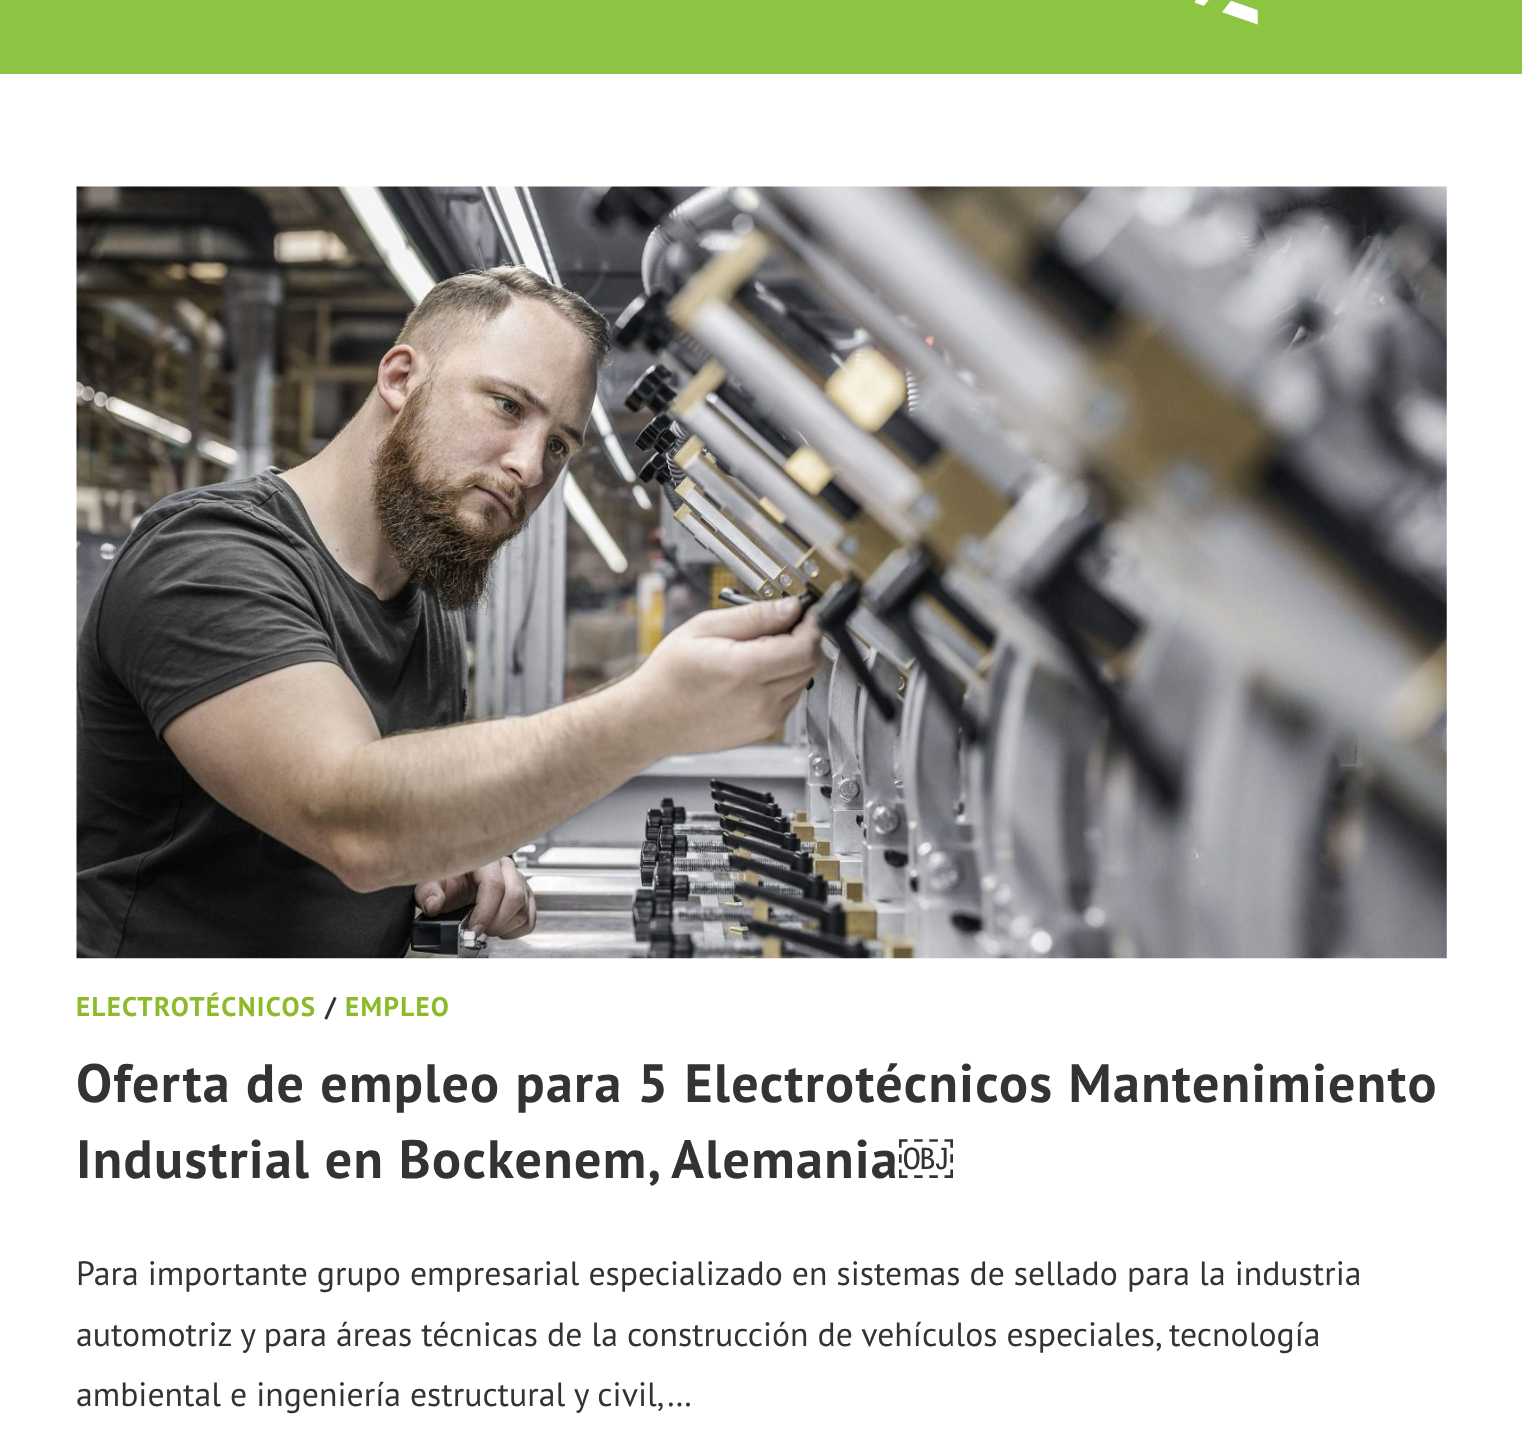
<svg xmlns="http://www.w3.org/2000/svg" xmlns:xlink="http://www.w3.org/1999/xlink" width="1522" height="1438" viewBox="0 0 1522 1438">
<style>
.cls-1{font:bold 27px PT Sans;letter-spacing:1.35px;fill:#8cba29}
.cls-2{font:bold 27px PT Sans;letter-spacing:1.35px;fill:#333333}
.cls-3{font:bold 54px PT Sans;letter-spacing:1.35px;fill:#333333}
.cls-4{font:bold 54px Liberation Serif;letter-spacing:1.35px;fill:#333333}
.cls-5{font:33.75px PT Sans;fill:#333333}
</style>
<rect width="100%" height="100%" fill="#ffffff"/>
<rect fill="#8bc541" x="0" y="0" width="1522" height="74"/>
<image xlink:href="image0.png" x="1194" y="0" width="64" height="25"/>
<image xlink:href="image1.png" x="76" y="186" width="1371" height="773"/>
<text class="cls-1" x="76" y="1016">ELECTROTÉCNICOS</text>
<text class="cls-2" x="325" y="1016">/</text>
<text class="cls-1" x="345" y="1016">EMPLEO</text>
<text class="cls-3"><tspan x="76" y="1102">Oferta de empleo para 5 Electrotécnicos Mantenimiento</tspan><tspan x="76" y="1178" word-spacing="-0.5">Industrial en Bockenem, Alemania</tspan></text>
<text class="cls-4" x="899" y="1178">￼</text>
<text class="cls-5"><tspan x="76" y="1285">Para importante grupo empresarial especializado en sistemas de sellado para la industria</tspan><tspan x="76" y="1346">automotriz y para áreas técnicas de la construcción de vehículos especiales, tecnología</tspan><tspan x="76" y="1406">ambiental e ingeniería estructural y civil,…</tspan></text>
</svg>
